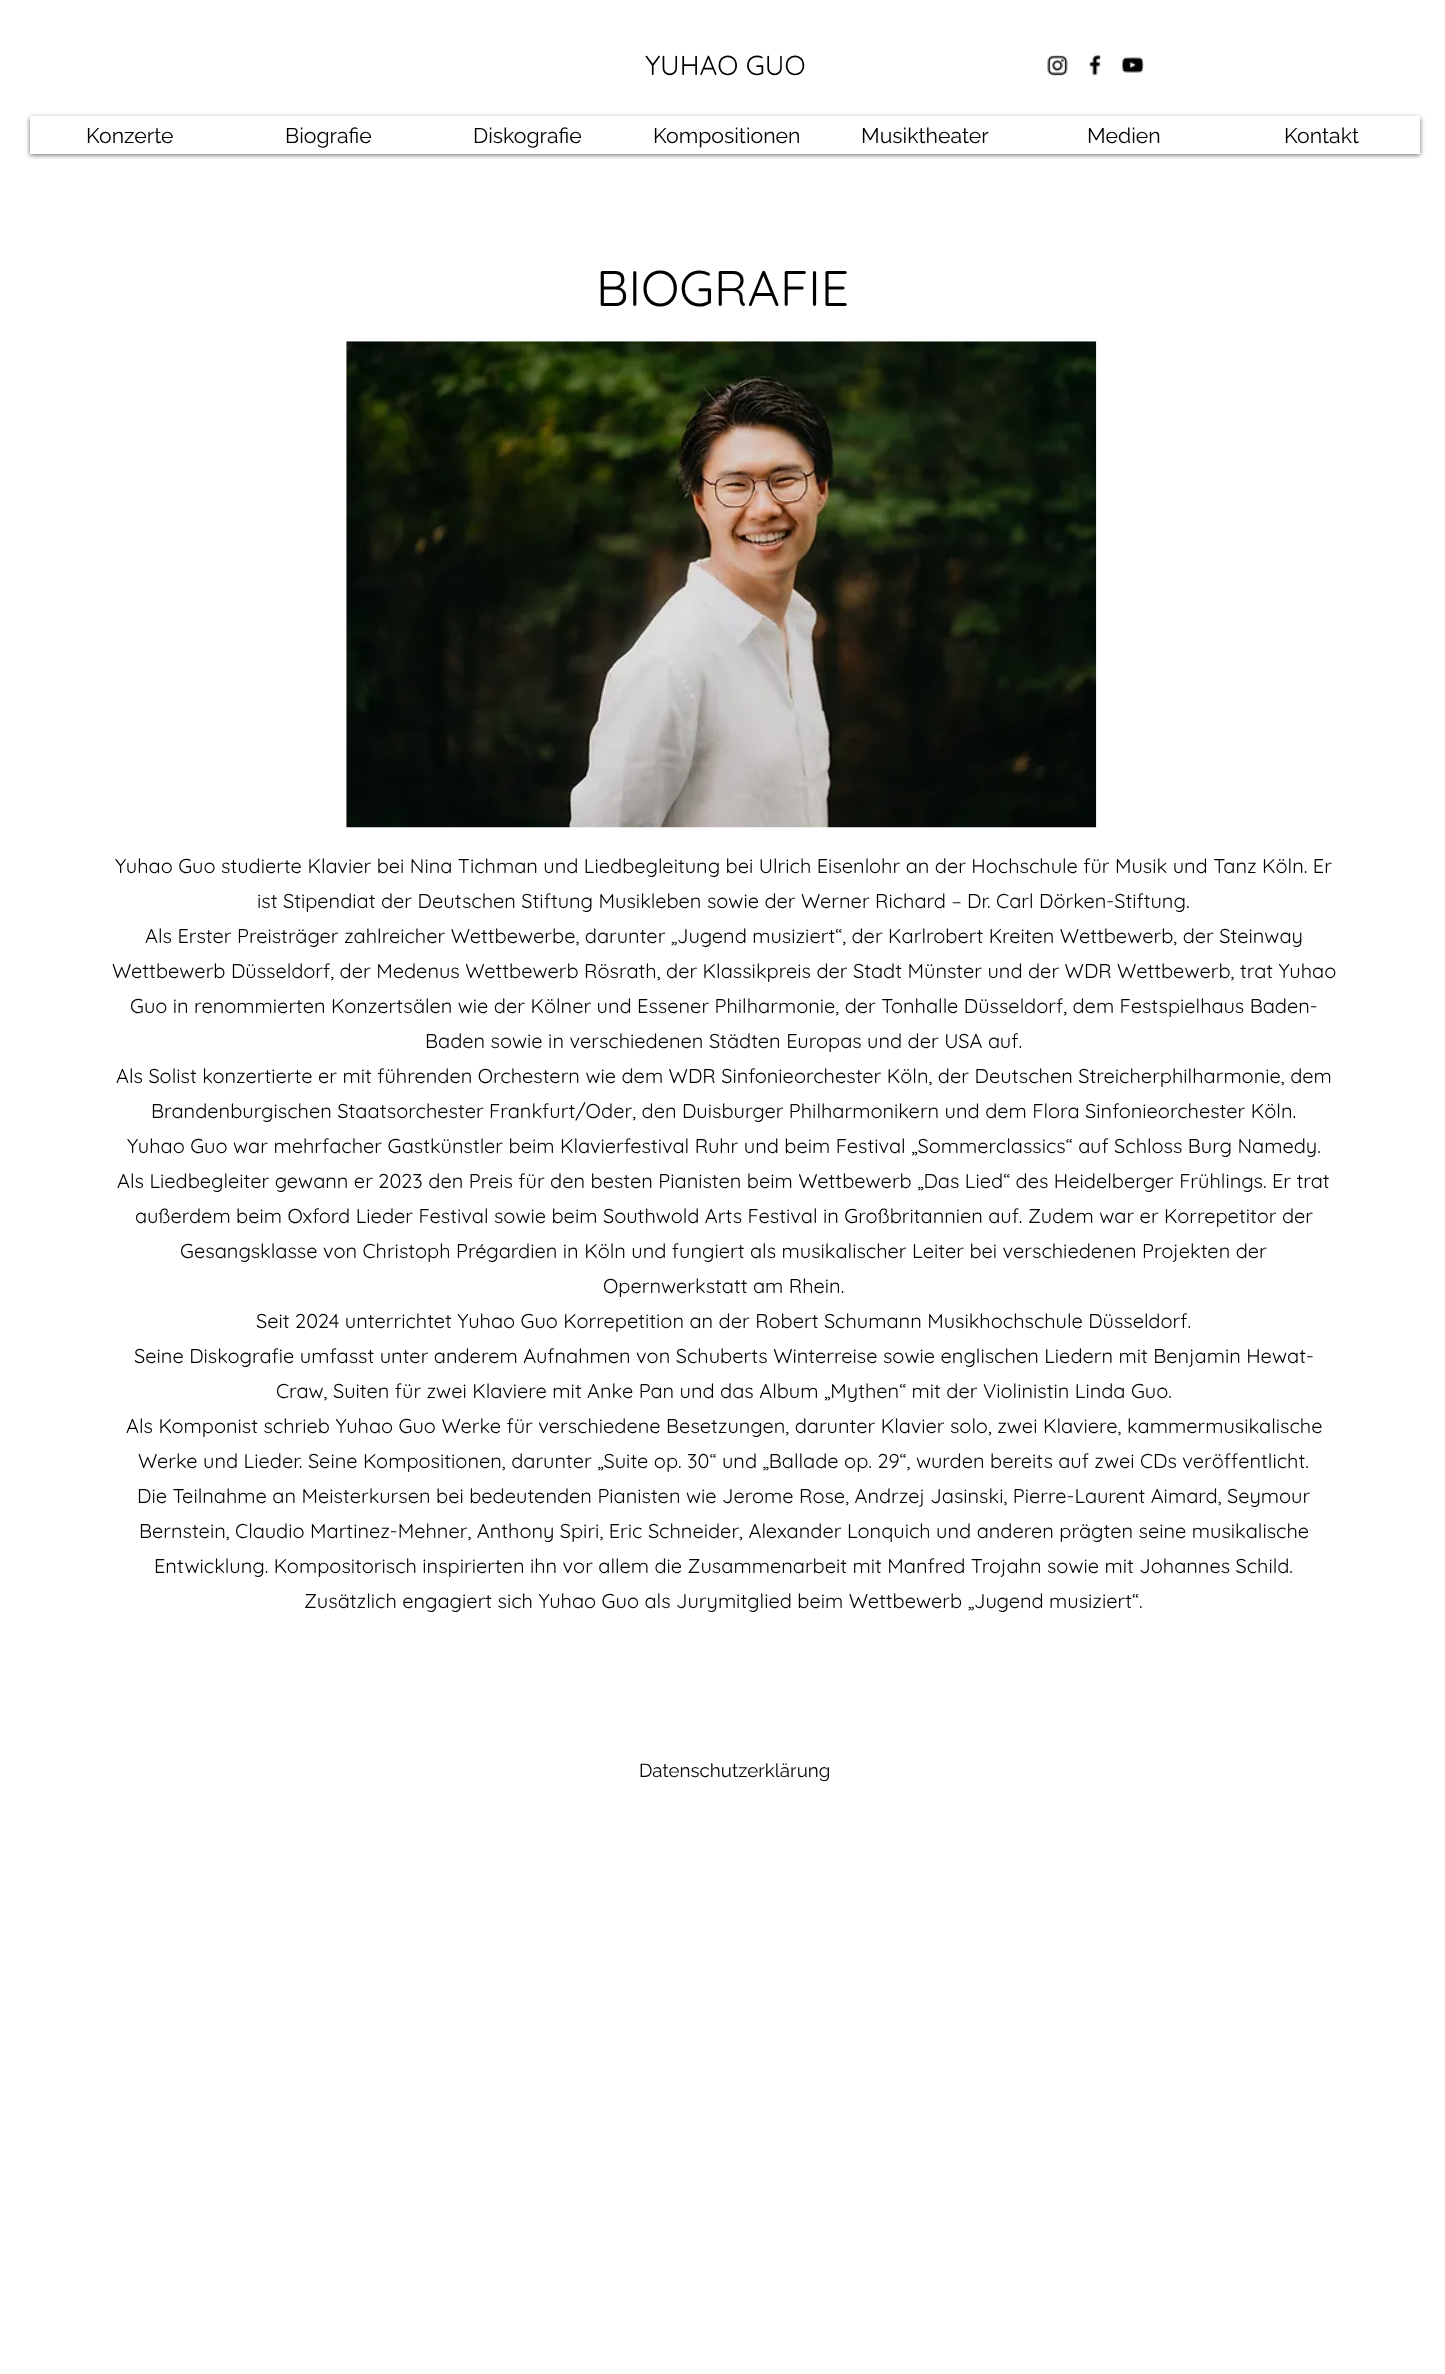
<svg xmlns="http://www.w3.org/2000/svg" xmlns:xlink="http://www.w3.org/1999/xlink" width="1445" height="2374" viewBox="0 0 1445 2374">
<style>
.cls-1{font:27.5px Quicksand;fill:#000000}
.cls-2{font:21.25px Raleway;fill:#000000}
.cls-3{font:50px Quicksand;fill:#000000}
.cls-4{font:20px Quicksand;fill:#000000}
.cls-5{font:18.75px Raleway;fill:#000000}
</style>
<rect width="100%" height="100%" fill="#ffffff"/>
<image xlink:href="image0.png" x="1047" y="55" width="21" height="21"/>
<image xlink:href="image1.png" x="1089" y="54" width="12" height="22"/>
<image xlink:href="image2.png" x="1121" y="57" width="23" height="16"/>
<rect fill="#000000" fill-opacity="0.6" filter="blur(2.5px)" x="30" y="118" width="1390" height="37"/>
<rect fill="#ffffff" x="30" y="116" width="1390" height="38"/>
<image xlink:href="image3.png" x="346" y="341" width="751" height="487"/>
<text class="cls-1" x="645" y="75">YUHAO GUO</text>
<text class="cls-2" x="86" y="143">Konzerte</text>
<text class="cls-2" x="285" y="143">Biografie</text>
<text class="cls-2" x="473" y="143">Diskografie</text>
<text class="cls-2" x="653" y="143">Kompositionen</text>
<text class="cls-2" x="861" y="143">Musiktheater</text>
<text class="cls-2" x="1087" y="143">Medien</text>
<text class="cls-2" x="1284" y="143">Kontakt</text>
<text class="cls-3" x="596" y="306">BIOGRAFIE</text>
<text class="cls-4" x="115" y="873">Yuhao Guo studierte Klavier bei Nina Tichman und Liedbegleitung bei Ulrich Eisenlohr an der Hochschule für Musik und Tanz Köln. Er</text>
<text class="cls-4" x="257" y="908">ist Stipendiat der Deutschen Stiftung Musikleben sowie der Werner Richard – Dr. Carl Dörken-Stiftung.</text>
<text class="cls-4" x="145" y="943">Als Erster Preisträger zahlreicher Wettbewerbe, darunter „Jugend musiziert“, der Karlrobert Kreiten Wettbewerb, der Steinway</text>
<text class="cls-4" x="112" y="978">Wettbewerb Düsseldorf, der Medenus Wettbewerb Rösrath, der Klassikpreis der Stadt Münster und der WDR Wettbewerb, trat Yuhao</text>
<text class="cls-4" x="130" y="1013">Guo in renommierten Konzertsälen wie der Kölner und Essener Philharmonie, der Tonhalle Düsseldorf, dem Festspielhaus Baden-</text>
<text class="cls-4" x="425" y="1048">Baden sowie in verschiedenen Städten Europas und der USA auf.</text>
<text class="cls-4" x="116" y="1083">Als Solist konzertierte er mit führenden Orchestern wie dem WDR Sinfonieorchester Köln, der Deutschen Streicherphilharmonie, dem</text>
<text class="cls-4" x="151" y="1118">Brandenburgischen Staatsorchester Frankfurt/Oder, den Duisburger Philharmonikern und dem Flora Sinfonieorchester Köln.</text>
<text class="cls-4" x="127" y="1153">Yuhao Guo war mehrfacher Gastkünstler beim Klavierfestival Ruhr und beim Festival „Sommerclassics“ auf Schloss Burg Namedy.</text>
<text class="cls-4" x="117" y="1188">Als Liedbegleiter gewann er 2023 den Preis für den besten Pianisten beim Wettbewerb „Das Lied“ des Heidelberger Frühlings. Er trat</text>
<text class="cls-4" x="135" y="1223">außerdem beim Oxford Lieder Festival sowie beim Southwold Arts Festival in Großbritannien auf. Zudem war er Korrepetitor der</text>
<text class="cls-4" x="180" y="1258">Gesangsklasse von Christoph Prégardien in Köln und fungiert als musikalischer Leiter bei verschiedenen Projekten der</text>
<text class="cls-4" x="603" y="1293">Opernwerkstatt am Rhein.</text>
<text class="cls-4" x="256" y="1328">Seit 2024 unterrichtet Yuhao Guo Korrepetition an der Robert Schumann Musikhochschule Düsseldorf.</text>
<text class="cls-4" x="134" y="1363">Seine Diskografie umfasst unter anderem Aufnahmen von Schuberts Winterreise sowie englischen Liedern mit Benjamin Hewat-</text>
<text class="cls-4" x="276" y="1398">Craw, Suiten für zwei Klaviere mit Anke Pan und das Album „Mythen“ mit der Violinistin Linda Guo.</text>
<text class="cls-4" x="126" y="1433">Als Komponist schrieb Yuhao Guo Werke für verschiedene Besetzungen, darunter Klavier solo, zwei Klaviere, kammermusikalische</text>
<text class="cls-4" x="138" y="1468">Werke und Lieder. Seine Kompositionen, darunter „Suite op. 30“ und „Ballade op. 29“, wurden bereits auf zwei CDs veröffentlicht.</text>
<text class="cls-4" x="137" y="1503">Die Teilnahme an Meisterkursen bei bedeutenden Pianisten wie Jerome Rose, Andrzej Jasinski, Pierre-Laurent Aimard, Seymour</text>
<text class="cls-4" x="139" y="1538">Bernstein, Claudio Martinez-Mehner, Anthony Spiri, Eric Schneider, Alexander Lonquich und anderen prägten seine musikalische</text>
<text class="cls-4" x="154" y="1573">Entwicklung. Kompositorisch inspirierten ihn vor allem die Zusammenarbeit mit Manfred Trojahn sowie mit Johannes Schild.</text>
<text class="cls-4" x="304" y="1608">Zusätzlich engagiert sich Yuhao Guo als Jurymitglied beim Wettbewerb „Jugend musiziert“.</text>
<text class="cls-5" x="639" y="1777">Datenschutzerklärung</text>
</svg>
